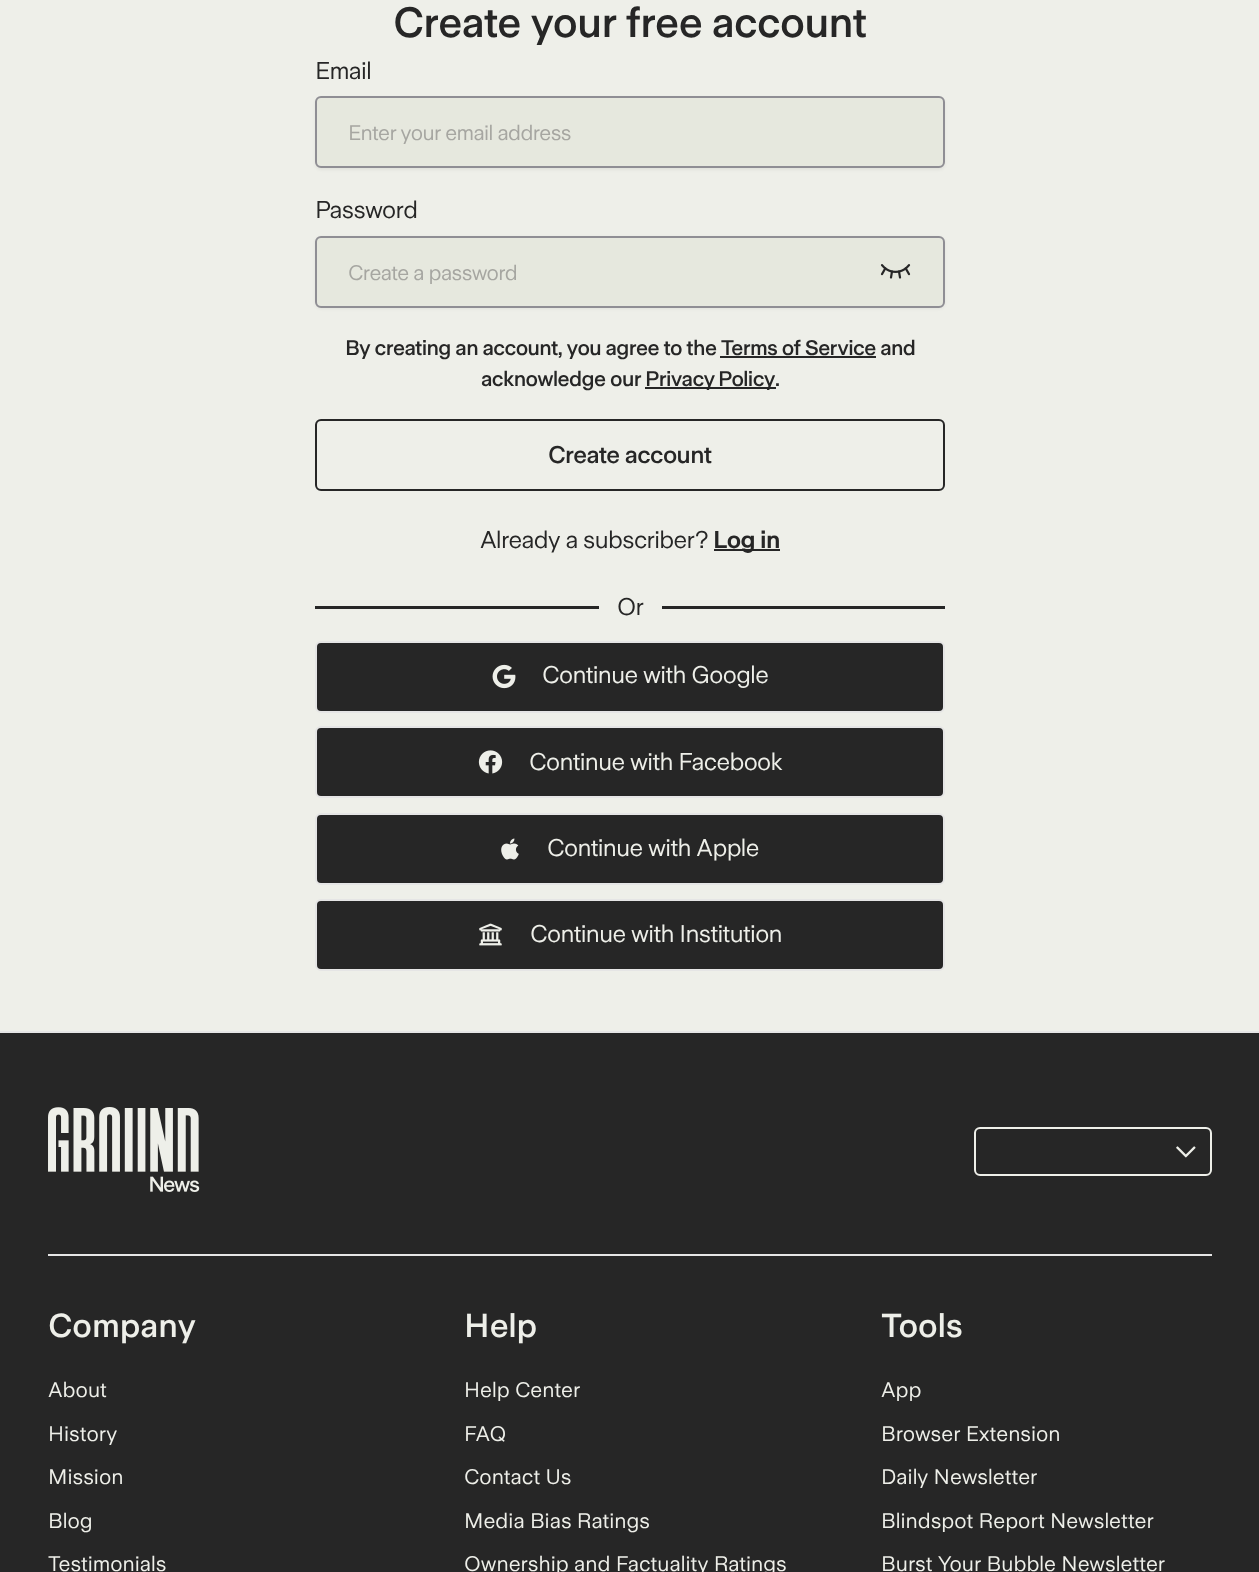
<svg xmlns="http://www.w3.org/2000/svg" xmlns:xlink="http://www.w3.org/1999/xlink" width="1259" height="1572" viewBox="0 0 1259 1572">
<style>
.cls-1{font:bold 42px 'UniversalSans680';letter-spacing:-0.6px;fill:#262626}
.cls-2{font:500 24px 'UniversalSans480';letter-spacing:-0.6px;fill:#262626}
.cls-3{font:500 21px 'UniversalSans480';letter-spacing:-0.6px;fill:#a6a6a1}
.cls-4{font:bold 21px 'UniversalSans680';letter-spacing:-0.6px;fill:#262626}
.cls-5{font:bold 24px 'UniversalSans680';letter-spacing:-0.6px;fill:#262626}
.cls-6{font:800 24px 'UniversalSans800';letter-spacing:-0.6px;fill:#262626}
.cls-7{font:500 24px 'UniversalSans480';letter-spacing:-0.6px;fill:#eeefe9}
.cls-8{font:bold 33px 'UniversalSans680';fill:#eeefe9}
.cls-9{font:500 21px 'UniversalSans480';fill:#eeefe9}
</style>
<rect width="100%" height="100%" fill="#eeefe9"/>
<rect fill="#000000" fill-opacity="0.05" filter="blur(1.5px)" x="315" y="98" width="630" height="72" rx="6"/>
<rect fill="#e6e8de" stroke="#8f8e94" stroke-width="2" x="316" y="97" width="628" height="70" rx="5"/>
<rect fill="#000000" fill-opacity="0.05" filter="blur(1.5px)" x="315" y="237" width="630" height="72" rx="6"/>
<rect fill="#e6e8de" stroke="#8f8e94" stroke-width="2" x="316" y="237" width="628" height="70" rx="5"/>
<image xlink:href="image0.png" x="880" y="264" width="31" height="15"/>
<rect fill="#262626" x="720" y="356" width="156" height="2"/>
<rect fill="#262626" x="645" y="387" width="131" height="2"/>
<rect fill="none" stroke="#262626" stroke-width="2" x="316" y="420" width="628" height="70" rx="5"/>
<rect fill="#262626" x="714" y="549" width="66" height="2"/>
<rect fill="#262626" x="315" y="606" width="284" height="3"/>
<rect fill="#262626" x="662" y="606" width="283" height="3"/>
<rect fill="#262626" stroke="#e5e5e5" stroke-width="2" x="316" y="642" width="628" height="70" rx="5"/>
<image xlink:href="image1.png" x="492" y="664" width="24" height="25"/>
<rect fill="#262626" stroke="#e5e5e5" stroke-width="2" x="316" y="727" width="628" height="70" rx="5"/>
<image xlink:href="image2.png" x="478" y="750" width="25" height="24"/>
<rect fill="#262626" stroke="#e5e5e5" stroke-width="2" x="316" y="814" width="628" height="70" rx="5"/>
<image xlink:href="image3.png" x="501" y="838" width="18" height="22"/>
<rect fill="#262626" stroke="#e5e5e5" stroke-width="2" x="316" y="900" width="628" height="70" rx="5"/>
<image xlink:href="image4.png" x="479" y="923" width="23" height="23"/>
<rect fill="#262626" x="0" y="1033" width="1259" height="539"/>
<rect fill="#e5e5e5" x="0" y="1031" width="1259" height="2"/>
<image xlink:href="image5.png" x="48" y="1107" width="152" height="85"/>
<rect fill="none" stroke="#eeefe9" stroke-width="2" x="975" y="1128" width="236" height="47" rx="5"/>
<image xlink:href="image6.png" x="1176" y="1146" width="20" height="12"/>
<rect fill="#e5e5e5" x="48" y="1254" width="1164" height="2"/>
<text class="cls-1" x="393" y="37">Create your free account</text>
<text class="cls-2" x="315" y="79">Email</text>
<text class="cls-3" x="348" y="140">Enter your email address</text>
<text class="cls-2" x="315" y="218">Password</text>
<text class="cls-3" x="348" y="280">Create a password</text>
<text class="cls-4" x="345" y="355">By creating an account, you agree to the Terms of Service and</text>
<text class="cls-4" x="481" y="386">acknowledge our</text>
<text class="cls-4" x="645" y="386" word-spacing="-1">Privacy Policy</text>
<text class="cls-4" x="775" y="386">.</text>
<text class="cls-5" x="548" y="463">Create account</text>
<text class="cls-2" x="480" y="548">Already a subscriber?</text>
<text class="cls-6" x="713" y="548">Log in</text>
<text class="cls-2" x="617" y="615">Or</text>
<text class="cls-7" x="542" y="683">Continue with Google</text>
<text class="cls-7" x="529" y="770">Continue with Facebook</text>
<text class="cls-7" x="547" y="856">Continue with Apple</text>
<text class="cls-7" x="530" y="942">Continue with Institution</text>
<text class="cls-8" x="48" y="1337">Company</text>
<text class="cls-9" x="48" y="1397">About</text>
<text class="cls-9" x="48" y="1441">History</text>
<text class="cls-9" x="48" y="1484">Mission</text>
<text class="cls-9" x="48" y="1528">Blog</text>
<text class="cls-9" x="48" y="1571">Testimonials</text>
<text class="cls-8" x="464" y="1337">Help</text>
<text class="cls-9" x="464" y="1397">Help Center</text>
<text class="cls-9" x="464" y="1441">FAQ</text>
<text class="cls-9" x="464" y="1484">Contact Us</text>
<text class="cls-9" x="464" y="1528">Media Bias Ratings</text>
<text class="cls-9" x="464" y="1571">Ownership and Factuality Ratings</text>
<text class="cls-8" x="881" y="1337">Tools</text>
<text class="cls-9" x="881" y="1397">App</text>
<text class="cls-9" x="881" y="1441">Browser Extension</text>
<text class="cls-9" x="881" y="1484">Daily Newsletter</text>
<text class="cls-9" x="881" y="1528">Blindspot Report Newsletter</text>
<text class="cls-9" x="881" y="1571">Burst Your Bubble Newsletter</text>
</svg>
